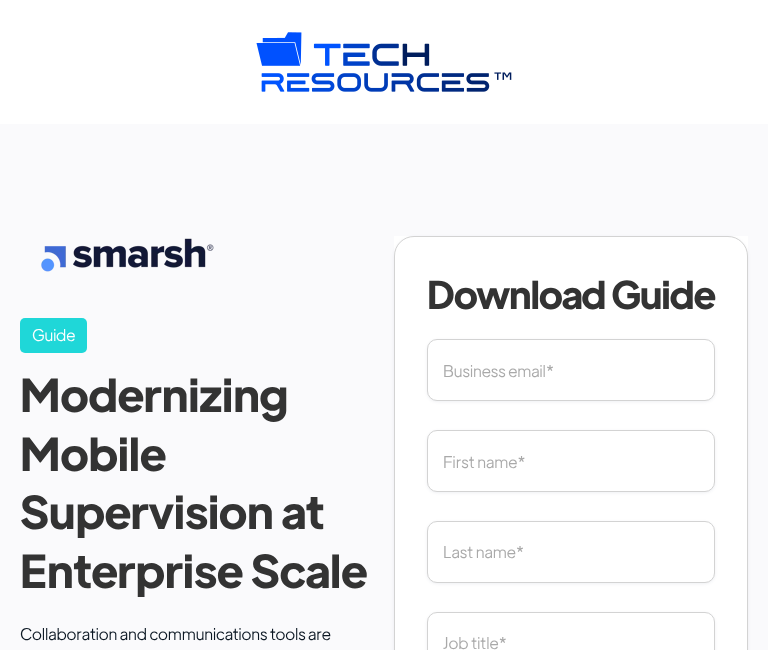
<svg xmlns="http://www.w3.org/2000/svg" xmlns:xlink="http://www.w3.org/1999/xlink" width="768" height="650" viewBox="0 0 768 650">
<style>
.cls-1{font:300 16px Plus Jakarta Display;letter-spacing:-0.1px;fill:#ffffff}
.cls-2{font:bold 45px Plus Jakarta Display;letter-spacing:-0.1px;fill:#333333}
.cls-3{font:300 16px Plus Jakarta Display;letter-spacing:-0.1px;fill:#0b1723}
.cls-4{font:bold 38px Plus Jakarta Display;letter-spacing:-1px;fill:#333333}
.cls-5{font:300 16px Plus Jakarta Display;fill:#a9a9a9}
</style>
<rect width="100%" height="100%" fill="#ffffff"/>
<image xlink:href="image0.png" x="256" y="32" width="256" height="60"/>
<rect fill="#fafafc" x="0" y="124" width="768" height="526"/>
<image xlink:href="image1.png" x="41" y="238" width="173" height="34"/>
<rect fill="#1fd7d8" x="20" y="318" width="67" height="35" rx="5"/>
<rect fill="#ffffff" x="394" y="236" width="354" height="20"/>
<rect fill="#1f2559" fill-opacity="0.07" filter="blur(1.5px)" x="394" y="237" width="354" height="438" rx="20"/>
<rect fill="#ffffff" stroke="#d3d3d3" x="394.5" y="236.5" width="353" height="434" rx="19.5"/>
<rect fill="#1f2559" fill-opacity="0.07" filter="blur(1.5px)" x="427" y="340" width="288" height="62" rx="10"/>
<rect fill="#ffffff" stroke="#d3d3d3" x="427.5" y="339.5" width="287" height="61" rx="9.5"/>
<rect fill="#1f2559" fill-opacity="0.07" filter="blur(1.5px)" x="427" y="431" width="288" height="62" rx="10"/>
<rect fill="#ffffff" stroke="#d3d3d3" x="427.5" y="430.5" width="287" height="61" rx="9.5"/>
<rect fill="#1f2559" fill-opacity="0.07" filter="blur(1.5px)" x="427" y="522" width="288" height="62" rx="10"/>
<rect fill="#ffffff" stroke="#d3d3d3" x="427.5" y="521.5" width="287" height="61" rx="9.5"/>
<rect fill="#1f2559" fill-opacity="0.07" filter="blur(1.5px)" x="427" y="613" width="288" height="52" rx="10"/>
<rect fill="#ffffff" stroke="#d3d3d3" x="427.5" y="612.5" width="287" height="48" rx="9.5"/>
<text class="cls-1" x="32" y="341">Guide</text>
<text class="cls-2"><tspan x="20" y="412">Modernizing</tspan><tspan x="20" y="471">Mobile</tspan><tspan x="20" y="529">Supervision at</tspan><tspan x="20" y="588">Enterprise Scale</tspan></text>
<text class="cls-3" x="20" y="640">Collaboration and communications tools are</text>
<text class="cls-4" x="427" y="309">Download Guide</text>
<text class="cls-5" x="443" y="377">Business email*</text>
<text class="cls-5" x="443" y="468">First name*</text>
<text class="cls-5" x="443" y="558">Last name*</text>
<text class="cls-5" x="443" y="649">Job title*</text>
</svg>
